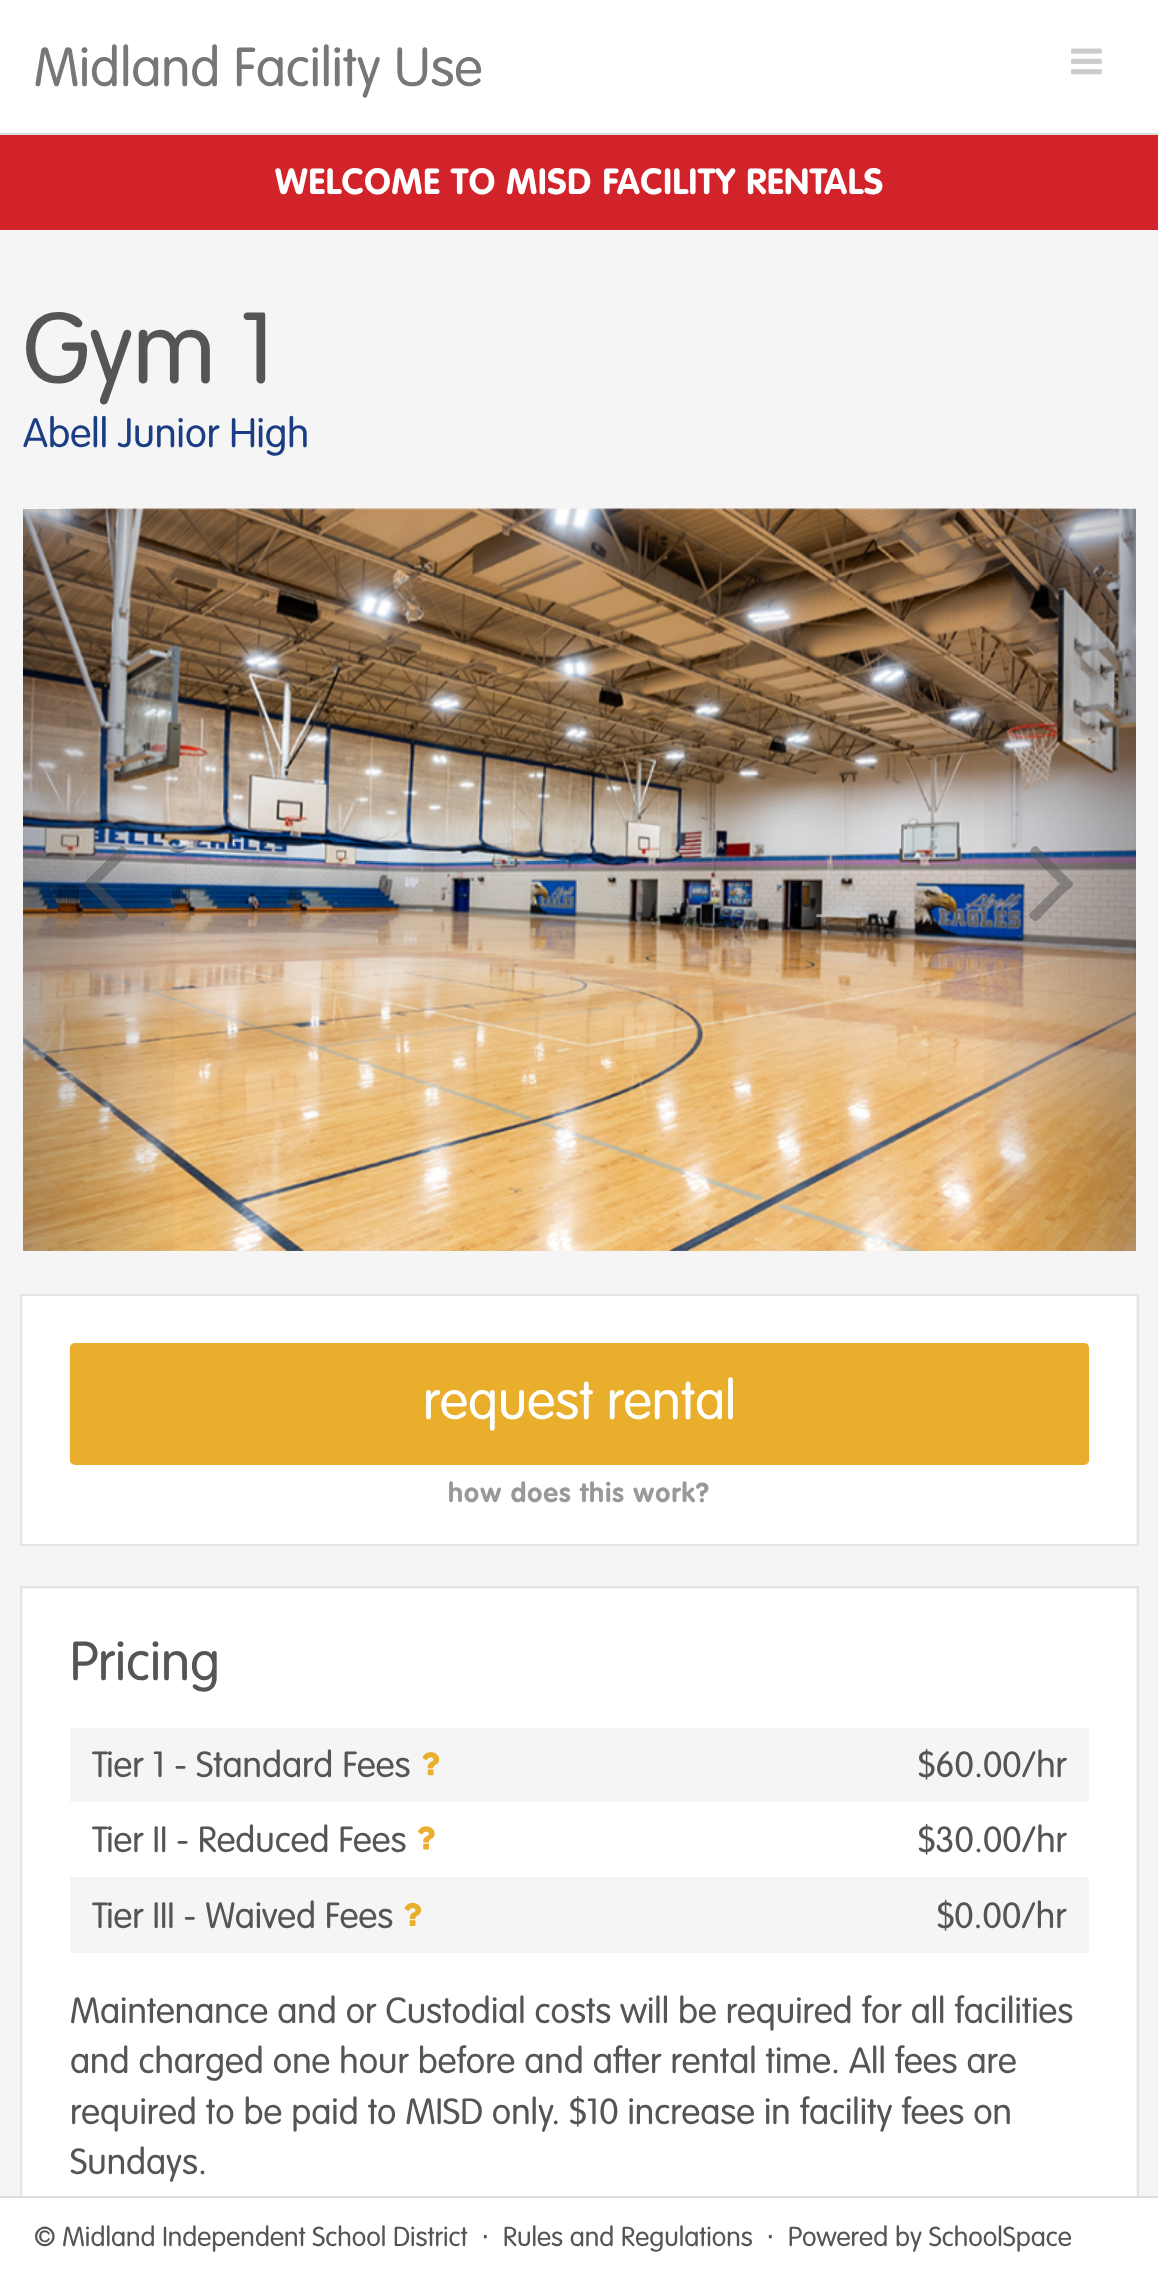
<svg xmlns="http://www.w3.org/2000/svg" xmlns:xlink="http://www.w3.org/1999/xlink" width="1158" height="2281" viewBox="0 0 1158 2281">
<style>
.cls-1{font:300 54px 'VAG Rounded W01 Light';fill:#777777}
.cls-2{font:bold 36px 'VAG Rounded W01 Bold';letter-spacing:0.7px;fill:#ffffff}
.cls-3{font:300 99px 'VAG Rounded W01 Light';fill:#555555}
.cls-4{font:300 40.5px 'VAG Rounded W01 Light';fill:#1b3d83}
.cls-5{font:300 54px 'VAG Rounded W01 Light';fill:#ffffff}
.cls-6{font:bold 27px 'VAG Rounded W01 Bold';letter-spacing:1.1px;fill:#999999}
.cls-7{font:300 54px 'VAG Rounded W01 Light';fill:#555555}
.cls-8{font:300 36px 'VAG Rounded W01 Light';fill:#555555}
.cls-9{font:300 27px 'VAG Rounded W01 Light';fill:#555555}
.cls-10{font:27px DejaVu Sans;fill:#555555}
</style>
<defs>
<linearGradient id="g1" gradientUnits="userSpaceOnUse" x1="22" y1="880" x2="189" y2="880"><stop offset="0" stop-color="#000000" stop-opacity="0.25"/><stop offset="1" stop-color="#000000" stop-opacity="0"/></linearGradient>
<linearGradient id="g2" gradientUnits="userSpaceOnUse" x1="970" y1="880" x2="1136" y2="880"><stop offset="0" stop-color="#000000" stop-opacity="0"/><stop offset="1" stop-color="#000000" stop-opacity="0.25"/></linearGradient>
</defs>
<rect width="100%" height="100%" fill="#f5f5f5"/>
<rect fill="#ffffff" x="0" y="0" width="1158" height="133"/>
<rect fill="#dddddd" x="0" y="133" width="1158" height="2"/>
<image xlink:href="image0.png" x="1071" y="48" width="31" height="27"/>
<rect fill="#d2232a" x="0" y="135" width="1158" height="95"/>
<image xlink:href="image1.png" x="23" y="508" width="1113" height="743"/>
<rect fill="url(#g1)" x="23" y="509" width="152" height="742"/>
<path fill="#555555" fill-opacity="0.5" d="M127 851C130 854 123 858 123 859L98 884L128 913C130 916 126 918 125 919C124 920 122 922 120 920L91 891C82 882 82 885 91 876L120 847C123 844 126 849 127 851Z"/>
<rect fill="url(#g2)" x="984" y="509" width="152" height="742"/>
<path fill="#555555" fill-opacity="0.5" d="M1072 882C1076 885 1067 891 1066 891L1043 915C1043 915 1037 923 1034 921C1032 919 1027 916 1030 913L1060 884L1035 859C1034 858 1028 854 1030 851L1032 848C1037 843 1038 848 1043 853Z"/>
<rect fill="none" stroke="#e4e4e4" stroke-width="2" x="21" y="1295" width="1117" height="250"/>
<rect fill="#ffffff" x="23" y="1296" width="1113" height="248"/>
<rect fill="#e9ae2c" x="70" y="1343" width="1019" height="122" rx="5"/>
<path fill="none" stroke="#e9ae2c" stroke-width="2.2" d="M72 1462.5L71 1460V1348L72 1345.5L74 1344.5H1084.5L1087 1345.5L1088 1348V1460L1087 1462.5"/>
<rect fill="none" stroke="#e4e4e4" stroke-width="2" x="21" y="1587" width="1117" height="651"/>
<rect fill="#ffffff" x="23" y="1589" width="1113" height="607"/>
<rect fill="#f5f5f5" x="70" y="1728" width="1019" height="74"/>
<image xlink:href="image2.png" x="422" y="1752" width="18" height="24"/>
<rect fill="#f5f5f5" x="70" y="1877" width="1019" height="76"/>
<image xlink:href="image3.png" x="418" y="1826" width="17" height="24"/>
<image xlink:href="image4.png" x="404" y="1902" width="18" height="24"/>
<rect fill="#ffffff" x="0" y="2198" width="1158" height="83"/>
<rect fill="#dddddd" x="0" y="2196" width="1158" height="2"/>
<text class="cls-1" x="34" y="86">Midland Facility Use</text>
<text class="cls-2" x="275" y="194">WELCOME TO MISD FACILITY RENTALS</text>
<text class="cls-3" x="23" y="383">Gym 1</text>
<text class="cls-4" x="23" y="447">Abell Junior High</text>
<text class="cls-5" x="423" y="1419">request rental</text>
<text class="cls-6" x="448" y="1502">how does this work?</text>
<text class="cls-7" x="70" y="1680">Pricing</text>
<text class="cls-8" x="92" y="1777">Tier 1 - Standard Fees</text>
<text class="cls-8" x="918" y="1777">$60.00/hr</text>
<text class="cls-8" x="92" y="1852">Tier II - Reduced Fees</text>
<text class="cls-8" x="918" y="1852">$30.00/hr</text>
<text class="cls-8" x="92" y="1928">Tier III - Waived Fees</text>
<text class="cls-8" x="937" y="1928">$0.00/hr</text>
<text class="cls-8"><tspan x="70" y="2023">Maintenance and or Custodial costs will be required for all facilities</tspan><tspan x="70" y="2073">and charged one hour before and after rental time. All fees are</tspan><tspan x="70" y="2124">required to be paid to MISD only. $10 increase in facility fees on</tspan><tspan x="70" y="2174">Sundays.</tspan></text>
<text class="cls-9" x="34" y="2246">© Midland Independent School District</text>
<text class="cls-10" x="481" y="2246">⋅</text>
<text class="cls-9" x="503" y="2246">Rules and Regulations</text>
<text class="cls-10" x="766" y="2246">⋅</text>
<text class="cls-9" x="788" y="2246">Powered by SchoolSpace</text>
</svg>
